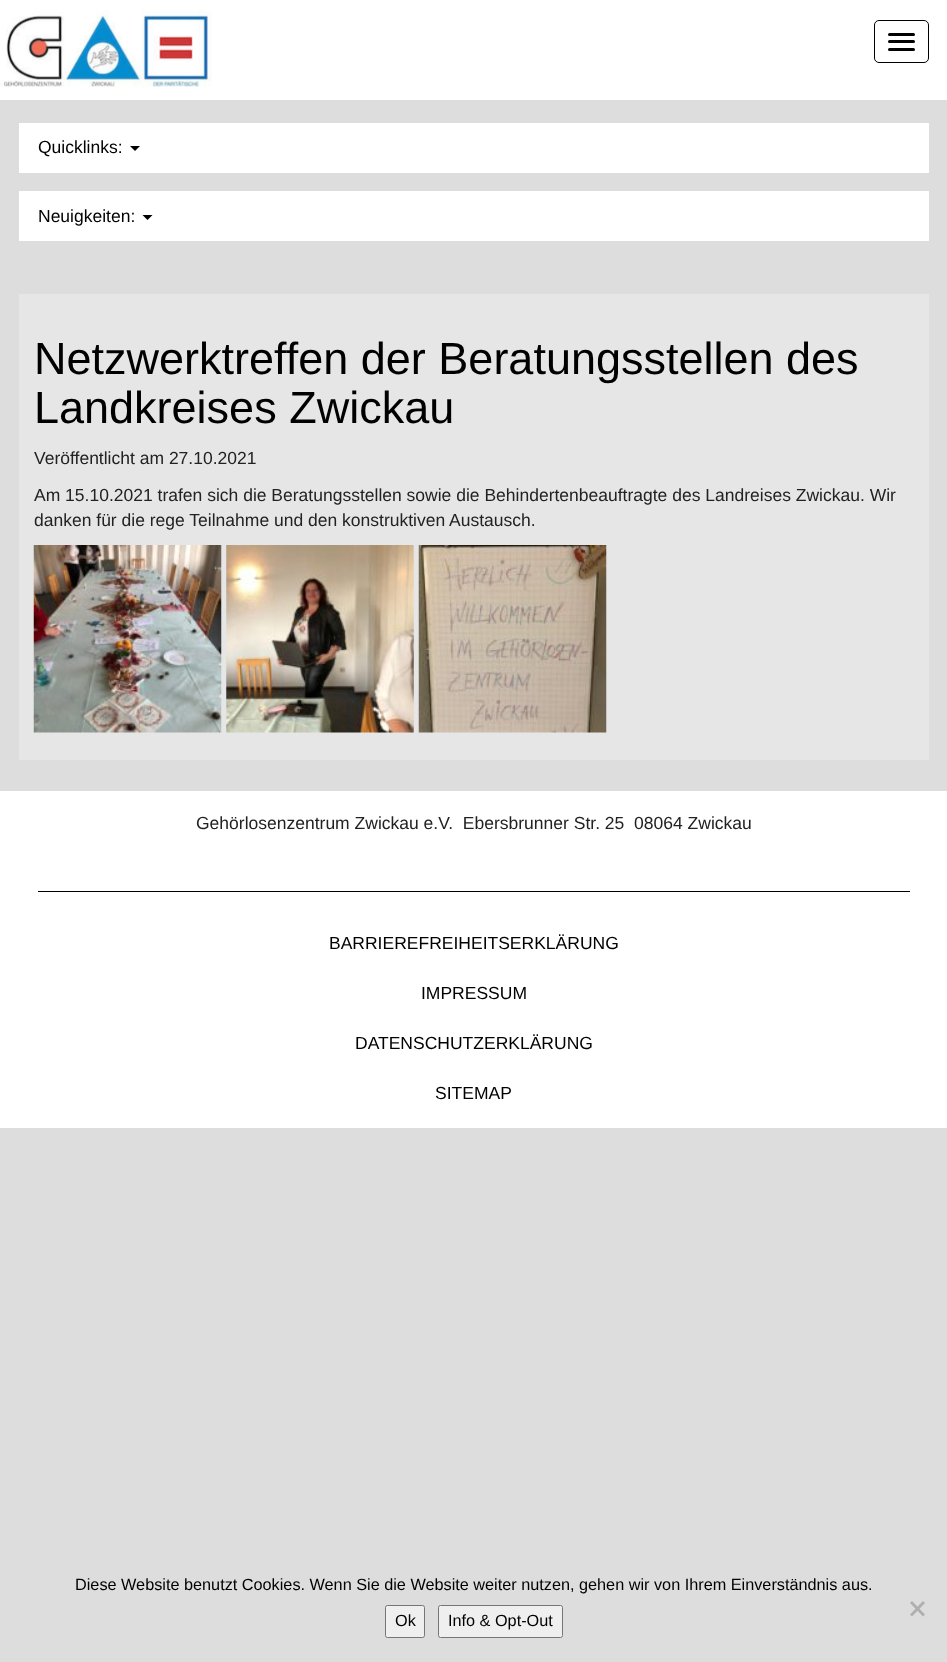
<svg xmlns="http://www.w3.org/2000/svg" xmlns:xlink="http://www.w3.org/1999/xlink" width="947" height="1662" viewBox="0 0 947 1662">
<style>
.cls-1{font:17.5px Liberation Sans;fill:#000000}
.cls-2{font:45px Liberation Sans;fill:#000000}
.cls-3{font:17.5px Liberation Sans;fill:#222222}
.cls-4{font:16.25px Liberation Sans;fill:#000000}
</style>
<rect width="100%" height="100%" fill="#dddddd"/>
<rect fill="#ffffff" x="0" y="0" width="947" height="100"/>
<image xlink:href="image0.png" x="0" y="10" width="212" height="77"/>
<rect fill="none" stroke="#000000" x="874.5" y="20.5" width="54" height="42" rx="4.5"/>
<rect fill="#000000" x="888" y="33" width="27" height="3" rx="1.5"/>
<rect fill="#000000" x="888" y="40" width="27" height="3" rx="1.5"/>
<rect fill="#000000" x="888" y="48" width="27" height="3" rx="1.5"/>
<rect fill="#ffffff" x="19" y="123" width="910" height="50"/>
<path fill="#000000" d="M130 146H140L135 151Z"/>
<rect fill="#ffffff" x="19" y="191" width="910" height="50"/>
<path fill="#000000" d="M142.5 215H152.5L147.5 220Z"/>
<rect fill="#e6e6e6" x="19" y="294" width="910" height="466"/>
<image xlink:href="image1.png" x="33" y="545" width="189" height="188"/>
<image xlink:href="image2.png" x="226" y="545" width="188" height="188"/>
<image xlink:href="image3.png" x="418" y="545" width="189" height="188"/>
<rect fill="#ffffff" x="0" y="791" width="947" height="337"/>
<rect fill="#000000" x="38" y="891" width="872" height="1"/>
<path fill="#afafaf" d="M923 1601L925 1603L912 1616.5L910 1614.5Z"/>
<path fill="#afafaf" d="M910 1603L912 1601L925 1614.5L923 1616.5Z"/>
<rect fill="#efefef" stroke="#767676" x="385.5" y="1605.5" width="39" height="32" rx="2"/>
<rect fill="#efefef" stroke="#767676" x="438.5" y="1605.5" width="124" height="32" rx="2"/>
<text class="cls-1" x="38" y="153">Quicklinks:</text>
<text class="cls-1" x="38" y="222">Neuigkeiten:</text>
<text class="cls-2"><tspan x="34" y="374">Netzwerktreffen der Beratungsstellen des</tspan><tspan x="34" y="423">Landkreises Zwickau</tspan></text>
<text class="cls-3" x="34" y="464">Veröffentlicht am 27.10.2021</text>
<text class="cls-3"><tspan x="34" y="501">Am 15.10.2021 trafen sich die Beratungsstellen sowie die Behindertenbeauftragte des Landreises Zwickau. Wir</tspan><tspan x="34" y="526">danken für die rege Teilnahme und den konstruktiven Austausch.</tspan></text>
<text class="cls-3" xml:space="preserve" x="196" y="829">Gehörlosenzentrum Zwickau e.V.  Ebersbrunner Str. 25  08064 Zwickau</text>
<text class="cls-1" x="329" y="949">BARRIEREFREIHEITSERKLÄRUNG</text>
<text class="cls-1" x="421" y="999">IMPRESSUM</text>
<text class="cls-1" x="355" y="1049">DATENSCHUTZERKLÄRUNG</text>
<text class="cls-1" x="435" y="1099">SITEMAP</text>
<text class="cls-4" x="75" y="1590">Diese Website benutzt Cookies. Wenn Sie die Website weiter nutzen, gehen wir von Ihrem Einverständnis aus.</text>
<text class="cls-4" x="395" y="1626">Ok</text>
<text class="cls-4" x="448" y="1626">Info &amp; Opt-Out</text>
</svg>
